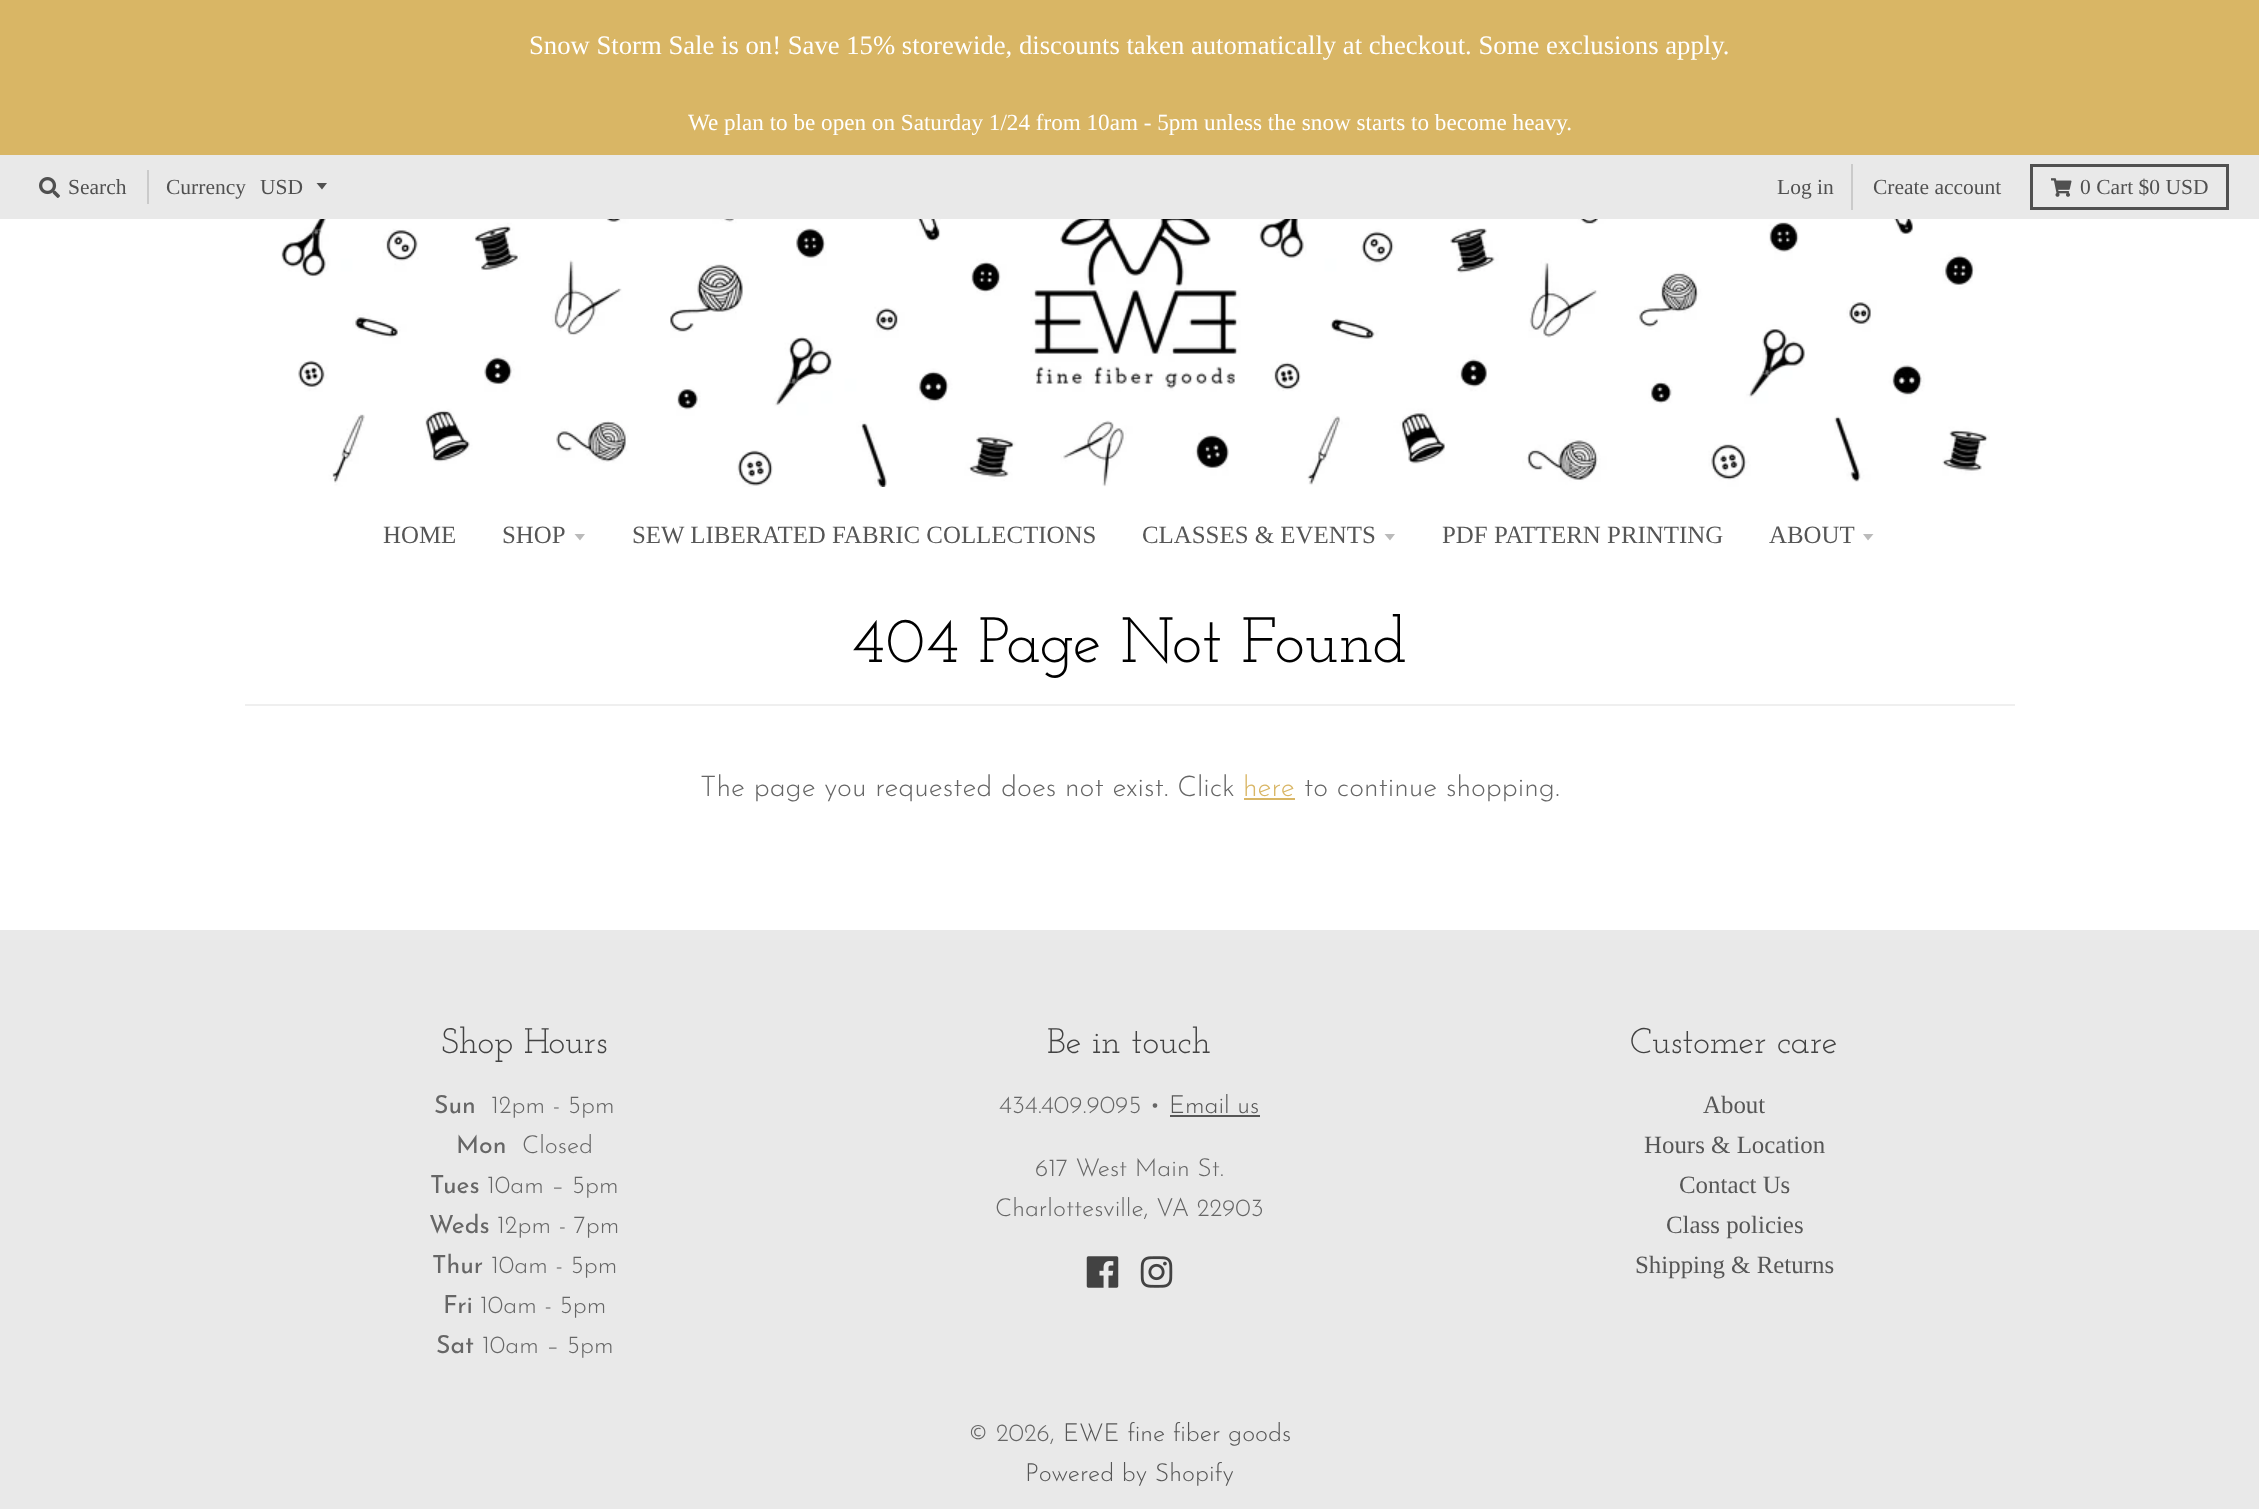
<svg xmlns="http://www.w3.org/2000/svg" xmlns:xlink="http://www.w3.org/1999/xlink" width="2259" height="1509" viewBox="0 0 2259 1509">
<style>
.cls-1{font:26.7px Liberation Serif;fill:#ffffff}
.cls-2{font:23.15px Liberation Serif;fill:#ffffff}
.cls-3{font:21.5px Liberation Serif;fill:#505050}
.cls-4{font:24.9px Liberation Serif;fill:#565656}
.cls-5{font:64.1px Josefin Slab;fill:#000000}
.cls-6{font:300 28.5px Josefin Sans;fill:#666666}
.cls-7{font:300 28.5px Josefin Sans;fill:#d9b665}
.cls-8{font:35.5px Josefin Slab;fill:#424242}
.cls-9{font:24.9px Josefin Sans;fill:#666666}
.cls-10{font:300 24.9px Josefin Sans;fill:#666666}
.cls-11{font:300 24.9px Josefin Sans;fill:#565656}
</style>
<rect width="100%" height="100%" fill="#ffffff"/>
<rect fill="#d9b665" x="0" y="0" width="2259" height="155"/>
<rect fill="#e9e9e9" x="0" y="155" width="2259" height="64"/>
<image xlink:href="image0.png" x="39" y="177" width="21" height="21"/>
<rect fill="#cacaca" x="147" y="170" width="2" height="34"/>
<path fill="#505050" d="M316.5 183L322 189.5L327 183Z"/>
<rect fill="#cacaca" x="1851" y="164" width="2" height="46"/>
<rect fill="none" stroke="#505050" stroke-width="3" x="2031.5" y="165.5" width="196" height="43"/>
<image xlink:href="image1.png" x="2051" y="178" width="21" height="19"/>
<image xlink:href="image2.png" x="274" y="219" width="1716" height="268"/>
<path fill="#bbbbbb" d="M574.5 534L580 540.5L585 534Z"/>
<path fill="#bbbbbb" d="M1384.5 534L1390 540.5L1395 534Z"/>
<path fill="#bbbbbb" d="M1863 534L1868 540.5L1873.5 534Z"/>
<rect fill="#efefef" x="245" y="704" width="1770" height="2"/>
<rect fill="#d9b665" x="1244" y="798" width="51" height="2"/>
<rect fill="#e9e9e9" x="0" y="930" width="2259" height="579"/>
<rect fill="#565656" x="1170" y="1115" width="90" height="2"/>
<image xlink:href="image3.png" x="1086" y="1256" width="33" height="32"/>
<image xlink:href="image4.png" x="1140" y="1256" width="33" height="32"/>
<text class="cls-1" x="529" y="54">Snow Storm Sale is on! Save 15% storewide, discounts taken automatically at checkout. Some exclusions apply.</text>
<text class="cls-2" x="688" y="130">We plan to be open on Saturday 1/24 from 10am - 5pm unless the snow starts to become heavy.</text>
<text class="cls-3" x="68" y="194">Search</text>
<text class="cls-3" x="166" y="194">Currency</text>
<text class="cls-3" x="260" y="194">USD</text>
<text class="cls-3" x="1777" y="194">Log in</text>
<text class="cls-3" x="1873" y="194">Create account</text>
<text class="cls-3" x="2080" y="194">0 Cart $0 USD</text>
<text class="cls-4" x="383" y="543">HOME</text>
<text class="cls-4" x="502" y="543">SHOP</text>
<text class="cls-4" x="632" y="543">SEW LIBERATED FABRIC COLLECTIONS</text>
<text class="cls-4" x="1142" y="543">CLASSES &amp; EVENTS</text>
<text class="cls-4" x="1442" y="543">PDF PATTERN PRINTING</text>
<text class="cls-4" x="1769" y="543">ABOUT</text>
<text class="cls-5" x="851" y="662">404 Page Not Found</text>
<text class="cls-6" x="700" y="796">The page you requested does not exist. Click</text>
<text class="cls-7" x="1243" y="796">here</text>
<text class="cls-6" x="1304" y="796">to continue shopping.</text>
<text class="cls-8" x="441" y="1053">Shop Hours</text>
<text class="cls-9" x="434" y="1113">Sun</text>
<text class="cls-10" x="491" y="1113">12pm - 5pm</text>
<text class="cls-9" x="456" y="1153">Mon</text>
<text class="cls-10" x="522" y="1153">Closed</text>
<text class="cls-9" x="430" y="1193">Tues</text>
<text class="cls-10" x="487" y="1193">10am – 5pm</text>
<text class="cls-9" x="429" y="1233">Weds</text>
<text class="cls-10" x="497" y="1233">12pm - 7pm</text>
<text class="cls-9" x="432" y="1273">Thur</text>
<text class="cls-10" x="491" y="1273">10am - 5pm</text>
<text class="cls-9" x="443" y="1313">Fri</text>
<text class="cls-10" x="480" y="1313">10am - 5pm</text>
<text class="cls-9" x="436" y="1353">Sat</text>
<text class="cls-10" x="482" y="1353">10am – 5pm</text>
<text class="cls-8" x="1047" y="1053">Be in touch</text>
<text class="cls-10" x="999" y="1113">434.409.9095 •</text>
<text class="cls-11" x="1169" y="1113">Email us</text>
<text class="cls-10" x="1035" y="1176">617 West Main St.</text>
<text class="cls-10" x="995" y="1216">Charlottesville, VA 22903</text>
<text class="cls-8" x="1630" y="1053">Customer care</text>
<text class="cls-4" x="1703" y="1113">About</text>
<text class="cls-4" x="1644" y="1153">Hours &amp; Location</text>
<text class="cls-4" x="1679" y="1193">Contact Us</text>
<text class="cls-4" x="1666" y="1233">Class policies</text>
<text class="cls-4" x="1635" y="1273">Shipping &amp; Returns</text>
<text class="cls-10" x="968" y="1441">© 2026,</text>
<text class="cls-11" x="1063" y="1441">EWE fine fiber goods</text>
<text class="cls-11" x="1025" y="1481">Powered by Shopify</text>
</svg>
